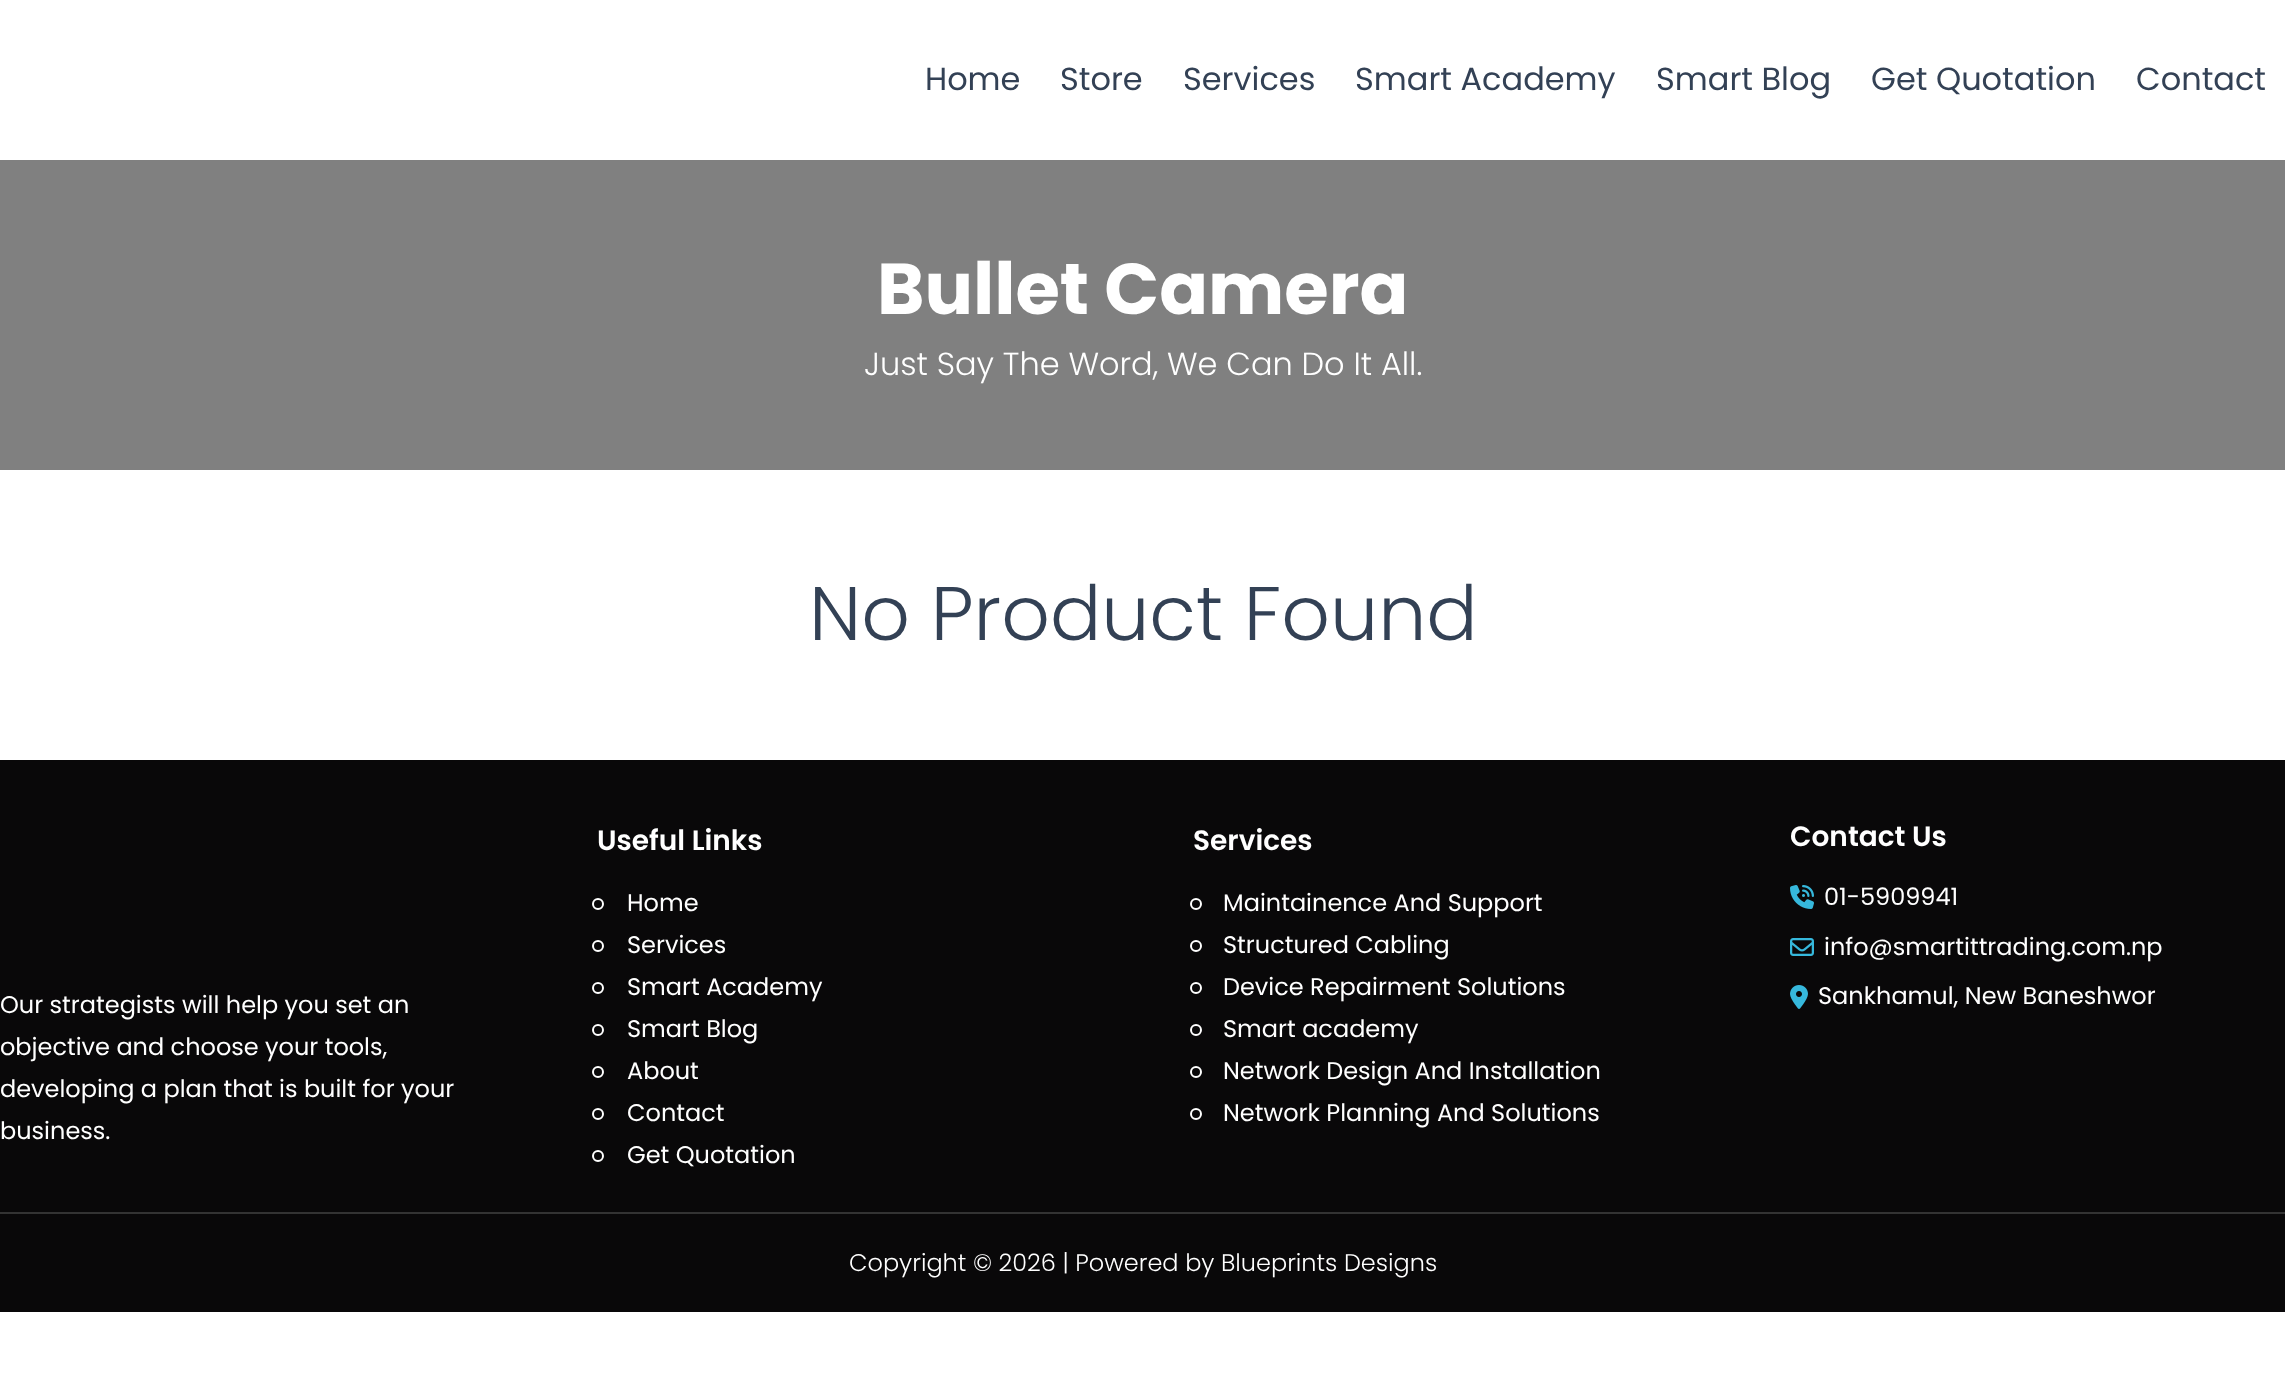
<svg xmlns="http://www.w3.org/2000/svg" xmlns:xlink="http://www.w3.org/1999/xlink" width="2285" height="1377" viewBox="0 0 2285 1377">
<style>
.cls-1{font:32px Poppins;fill:#334155}
.cls-2{font:bold 72px Poppins;fill:#ffffff}
.cls-3{font:300 32px Poppins;fill:#ffffff}
.cls-4{font:300 76px Poppins;fill:#334155}
.cls-5{font:24px Poppins;fill:#ffffff}
.cls-6{font:600 28px Poppins;fill:#ffffff}
.cls-7{font:300 24px Poppins;fill:#ffffff}
</style>
<rect width="100%" height="100%" fill="#ffffff"/>
<rect fill="#808080" x="0" y="160" width="2285" height="310"/>
<rect fill="#090809" x="0" y="760" width="2285" height="552"/>
<circle fill="none" stroke="#ffffff" stroke-width="2" cx="598" cy="904" r="5"/>
<circle fill="none" stroke="#ffffff" stroke-width="2" cx="598" cy="946" r="5"/>
<circle fill="none" stroke="#ffffff" stroke-width="2" cx="598" cy="988" r="5"/>
<circle fill="none" stroke="#ffffff" stroke-width="2" cx="598" cy="1030" r="5"/>
<circle fill="none" stroke="#ffffff" stroke-width="2" cx="598" cy="1072" r="5"/>
<circle fill="none" stroke="#ffffff" stroke-width="2" cx="598" cy="1114" r="5"/>
<circle fill="none" stroke="#ffffff" stroke-width="2" cx="598" cy="1156" r="5"/>
<circle fill="none" stroke="#ffffff" stroke-width="2" cx="1196" cy="904" r="5"/>
<circle fill="none" stroke="#ffffff" stroke-width="2" cx="1196" cy="946" r="5"/>
<circle fill="none" stroke="#ffffff" stroke-width="2" cx="1196" cy="988" r="5"/>
<circle fill="none" stroke="#ffffff" stroke-width="2" cx="1196" cy="1030" r="5"/>
<circle fill="none" stroke="#ffffff" stroke-width="2" cx="1196" cy="1072" r="5"/>
<circle fill="none" stroke="#ffffff" stroke-width="2" cx="1196" cy="1114" r="5"/>
<image xlink:href="image0.png" x="1790" y="885" width="24" height="24"/>
<image xlink:href="image1.png" x="1790" y="938" width="24" height="18"/>
<image xlink:href="image2.png" x="1790" y="985" width="18" height="24"/>
<rect fill="#333333" x="0" y="1212" width="2285" height="2"/>
<text class="cls-1" x="925" y="90">Home</text>
<text class="cls-1" x="1060" y="90">Store</text>
<text class="cls-1" x="1183" y="90">Services</text>
<text class="cls-1" x="1355" y="90">Smart Academy</text>
<text class="cls-1" x="1656" y="90">Smart Blog</text>
<text class="cls-1" x="1871" y="90">Get Quotation</text>
<text class="cls-1" x="2136" y="90">Contact</text>
<text class="cls-2" x="877" y="314">Bullet Camera</text>
<text class="cls-3" x="864" y="375">Just Say The Word, We Can Do It All.</text>
<text class="cls-4" x="809" y="640">No Product Found</text>
<text class="cls-5"><tspan x="0" y="1013">Our strategists will help you set an</tspan><tspan x="0" y="1055">objective and choose your tools,</tspan><tspan x="0" y="1097">developing a plan that is built for your</tspan><tspan x="0" y="1139">business.</tspan></text>
<text class="cls-6" x="597" y="850">Useful Links</text>
<text class="cls-5"><tspan x="627" y="911">Home</tspan><tspan x="627" y="953">Services</tspan><tspan x="627" y="995">Smart Academy</tspan><tspan x="627" y="1037">Smart Blog</tspan><tspan x="627" y="1079">About</tspan><tspan x="627" y="1121">Contact</tspan><tspan x="627" y="1163">Get Quotation</tspan></text>
<text class="cls-6" x="1193" y="850">Services</text>
<text class="cls-5"><tspan x="1223" y="911">Maintainence And Support</tspan><tspan x="1223" y="953">Structured Cabling</tspan><tspan x="1223" y="995">Device Repairment Solutions</tspan><tspan x="1223" y="1037">Smart academy</tspan><tspan x="1223" y="1079">Network Design And Installation</tspan><tspan x="1223" y="1121">Network Planning And Solutions</tspan></text>
<text class="cls-6" x="1790" y="846">Contact Us</text>
<text class="cls-5" x="1824" y="905">01-5909941</text>
<text class="cls-5" x="1824" y="955">info@smartittrading.com.np</text>
<text class="cls-5" x="1818" y="1004">Sankhamul, New Baneshwor</text>
<text class="cls-7" x="849" y="1271">Copyright © 2026 | Powered by Blueprints Designs</text>
</svg>
